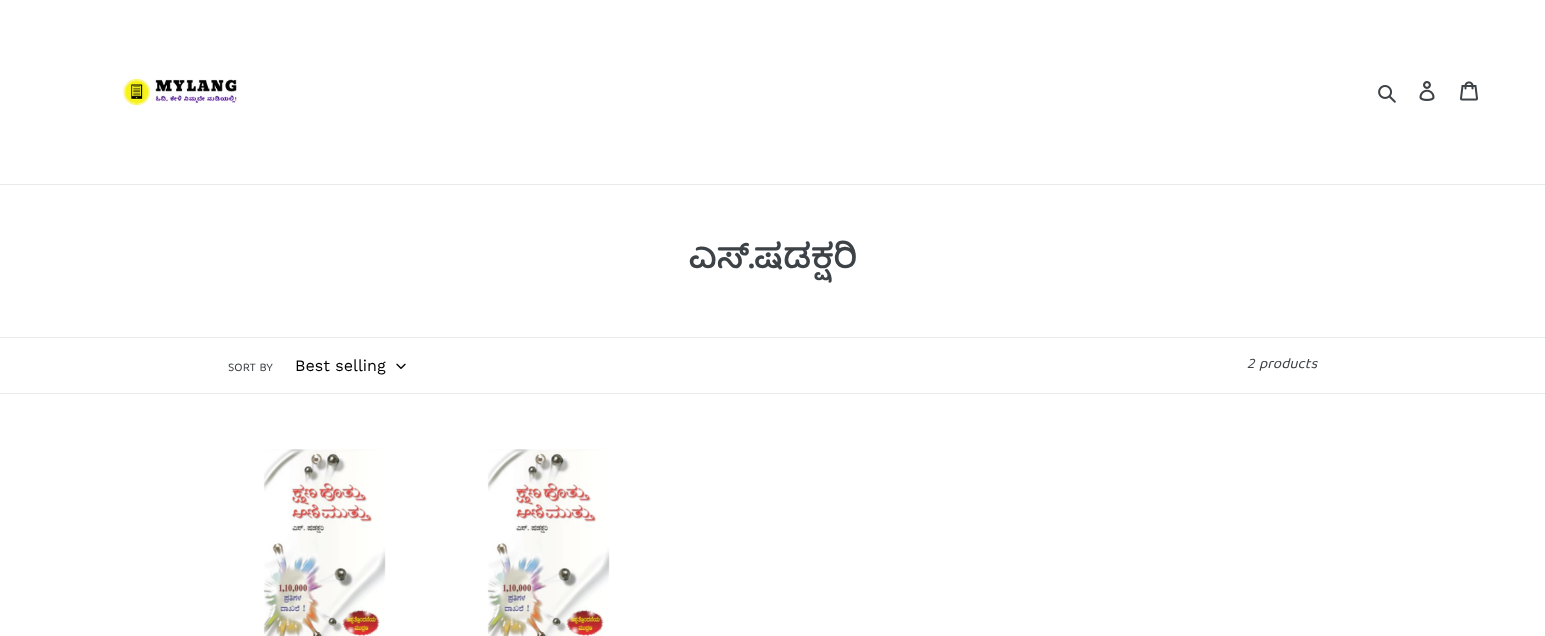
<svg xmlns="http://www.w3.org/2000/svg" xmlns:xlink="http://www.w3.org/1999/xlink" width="1545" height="636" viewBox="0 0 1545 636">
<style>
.cls-1{font:bold 35px 'Baloo Tamma 2';fill:#3d4246}
.cls-2{font:12px 'Baloo Tamma 2';fill:#3d4246}
.cls-3{font:16px Work Sans;fill:#000000}
.cls-4{font:italic 15px 'Baloo Tamma 2';fill:#3d4246}
</style>
<rect width="100%" height="100%" fill="#ffffff"/>
<rect fill="#e8e9eb" x="0" y="184" width="1545" height="1"/>
<image xlink:href="image0.png" x="122" y="77" width="116" height="29"/>
<image xlink:href="image1.png" x="1378" y="85" width="18" height="18"/>
<image xlink:href="image2.png" x="1419" y="81" width="16" height="20"/>
<image xlink:href="image3.png" x="1460" y="81" width="18" height="20"/>
<rect fill="#e8e9eb" x="0" y="337" width="1545" height="1"/>
<rect fill="#e8e9eb" x="0" y="393" width="1545" height="1"/>
<image xlink:href="image4.png" x="396" y="363" width="10" height="6"/>
<image xlink:href="image5.png" x="263" y="449" width="123" height="187"/>
<image xlink:href="image5.png" x="487" y="449" width="123" height="187"/>
<text class="cls-1" x="688" y="268">ಎಸ್.ಷಡಕ್ಷರಿ</text>
<text class="cls-2" x="228" y="371">SORT BY</text>
<text class="cls-3" x="295" y="371">Best selling</text>
<text class="cls-4" x="1247" y="368">2 products</text>
</svg>
